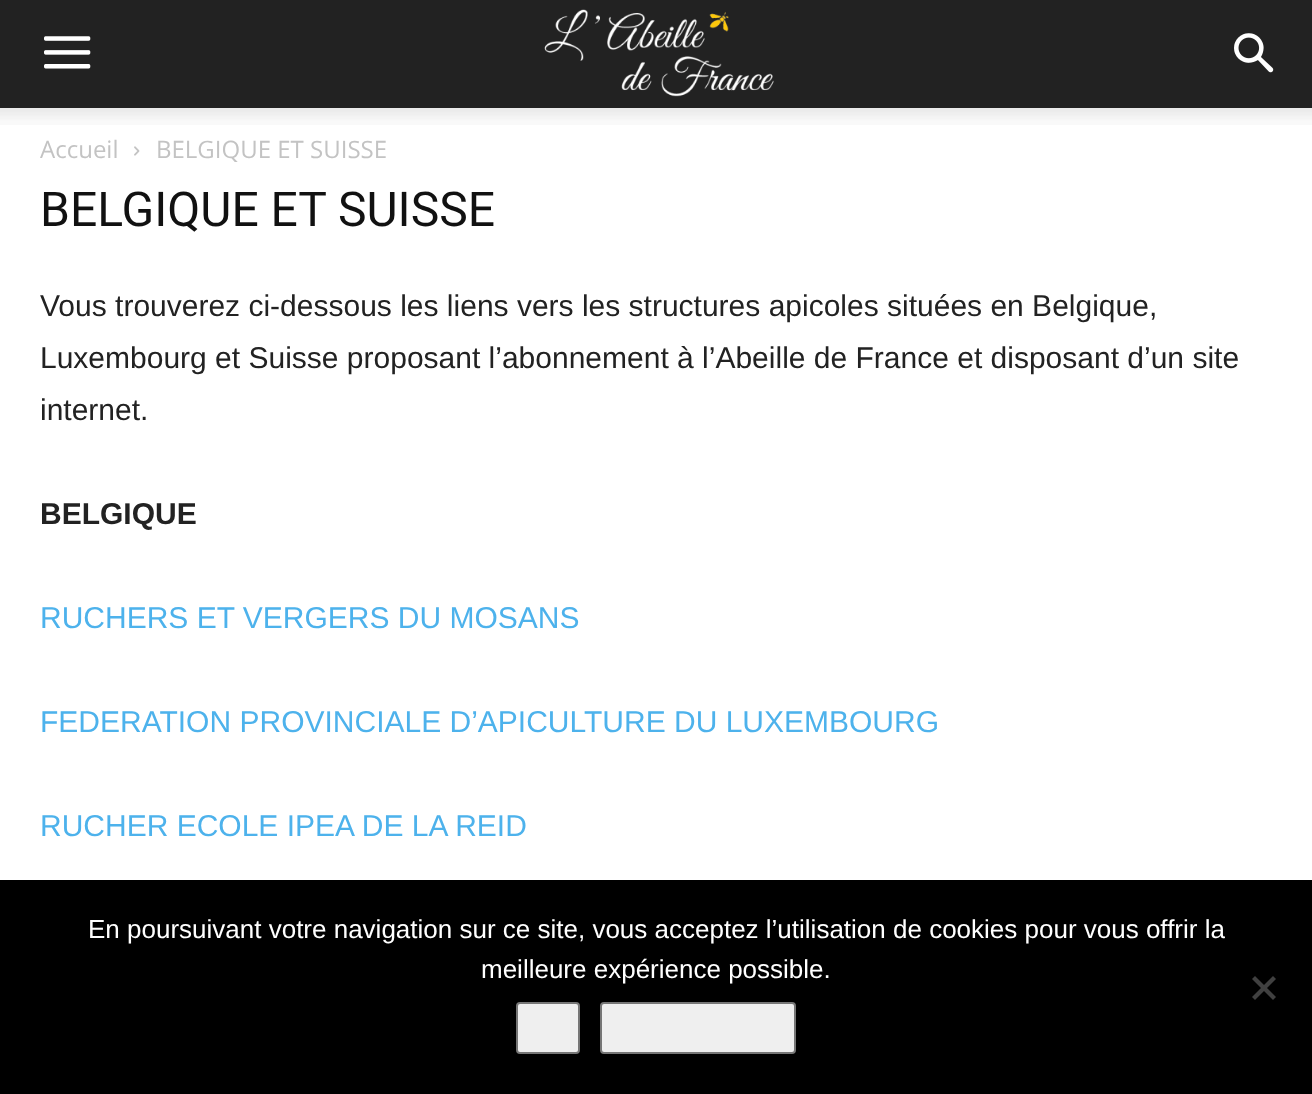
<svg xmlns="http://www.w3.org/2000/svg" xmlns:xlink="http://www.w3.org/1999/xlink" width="1312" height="1094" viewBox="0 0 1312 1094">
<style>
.cls-1{font:24px Open Sans;fill:#c3c3c3}
.cls-2{font:48px Roboto;fill:#111111}
.cls-3{font:30px Liberation Sans;fill:#222222}
.cls-4{font:bold 30px Liberation Sans;fill:#222222}
.cls-5{font:30px Liberation Sans;fill:#4db2ec}
.cls-6{font:26px Liberation Sans;fill:#ffffff}
</style>
<rect width="100%" height="100%" fill="#ffffff"/>
<rect fill="#222222" x="0" y="0" width="1312" height="108"/>
<image xlink:href="image0.png" x="44" y="36" width="47" height="33"/>
<image xlink:href="image1.png" x="544" y="9" width="230" height="88"/>
<image xlink:href="image2.png" x="1234" y="33" width="40" height="40"/>
<image xlink:href="image3.png" x="0" y="108" width="1312" height="17"/>
<image xlink:href="image4.png" x="134" y="146" width="6" height="10"/>
<rect fill="#000000" x="0" y="880" width="1312" height="214"/>
<path fill="#404040" d="M1273 976L1276 979L1255 1000L1252 997Z"/>
<path fill="#404040" d="M1252 979L1255 976L1276 997L1273 1000Z"/>
<rect fill="#efefef" stroke="#767676" stroke-width="2" x="517" y="1003" width="62" height="50" rx="3"/>
<rect fill="#efefef" stroke="#767676" stroke-width="2" x="601" y="1003" width="194" height="50" rx="3"/>
<text class="cls-1" x="40" y="158">Accueil</text>
<text class="cls-1" x="156" y="158">BELGIQUE ET SUISSE</text>
<text class="cls-2" x="40" y="226">BELGIQUE ET SUISSE</text>
<text class="cls-3"><tspan x="40" y="316">Vous trouverez ci-dessous les liens vers les structures apicoles situées en Belgique,</tspan><tspan x="40" y="368">Luxembourg et Suisse proposant l’abonnement à l’Abeille de France et disposant d’un site</tspan><tspan x="40" y="420">internet.</tspan></text>
<text class="cls-4" x="40" y="524">BELGIQUE</text>
<text class="cls-5" x="40" y="628">RUCHERS ET VERGERS DU MOSANS</text>
<text class="cls-5" x="40" y="732">FEDERATION PROVINCIALE D’APICULTURE DU LUXEMBOURG</text>
<text class="cls-5" x="40" y="836">RUCHER ECOLE IPEA DE LA REID</text>
<text class="cls-6" x="88" y="938">En poursuivant votre navigation sur ce site, vous acceptez l’utilisation de cookies pour vous offrir la</text>
<text class="cls-6" x="481" y="978">meilleure expérience possible.</text>
</svg>
